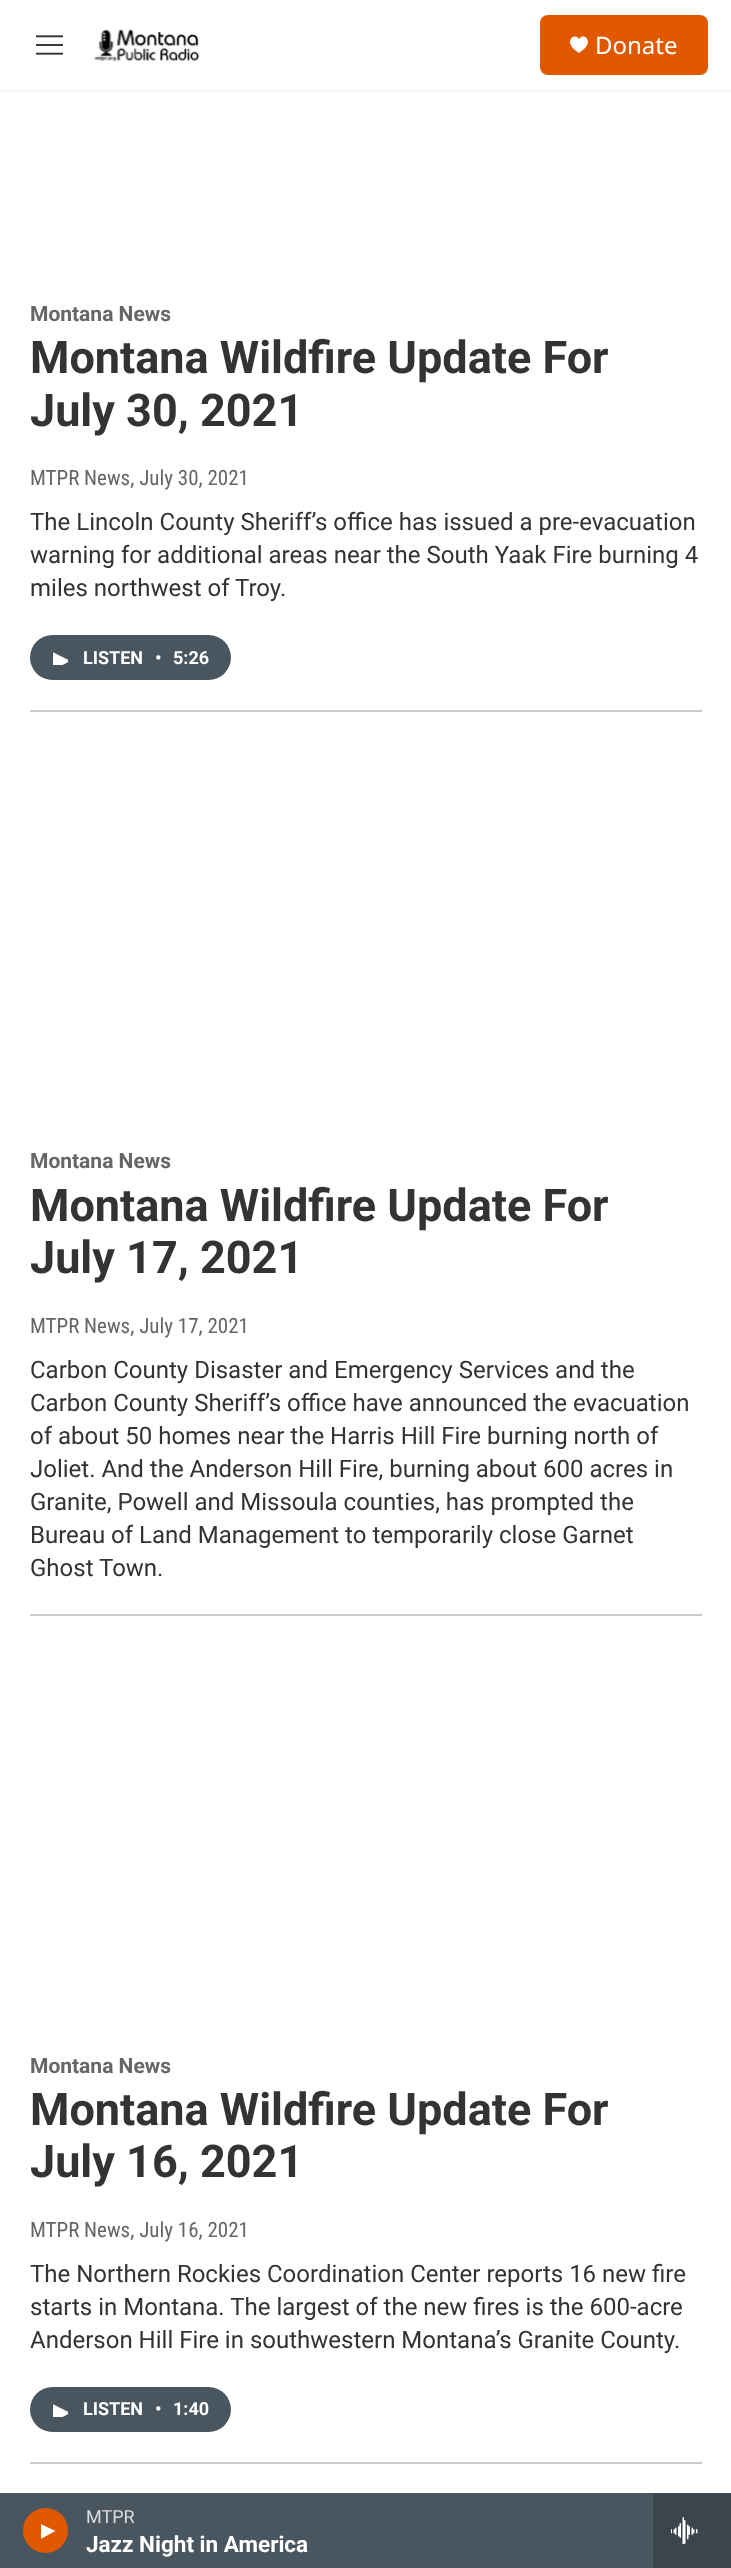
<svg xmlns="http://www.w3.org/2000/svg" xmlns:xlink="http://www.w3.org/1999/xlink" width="731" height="2568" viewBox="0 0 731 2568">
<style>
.cls-1{font:24px Noto Sans;fill:#ffffff}
.cls-2{font:18px Roboto;fill:#dbdddf}
.cls-3{font:bold 22.5px 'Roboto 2';fill:#ffffff}
.cls-4{font:bold 21px Roboto;fill:#666666}
.cls-5{font:bold 45px Roboto;fill:#333333}
.cls-6{font:21px Roboto Condensed;fill:#666666}
.cls-7{font:24px Roboto;fill:#333333}
.cls-8{font:bold 18px 'Roboto 2';fill:#ffffff}
</style>
<defs>
<clipPath id="clip1"><rect x="41" y="2523" width="15" height="17"/></clipPath>
<clipPath id="clip2"><rect x="53" y="650" width="15" height="15"/></clipPath>
<clipPath id="clip3"><rect x="53" y="2402" width="15" height="15"/></clipPath>
</defs>
<rect width="100%" height="100%" fill="#ffffff"/>
<rect fill="#f5f5f5" x="0" y="90" width="731" height="2"/>
<image xlink:href="image0.png" x="36" y="35" width="27" height="20"/>
<image xlink:href="image1.png" x="94" y="29" width="106" height="33"/>
<rect fill="#e05900" x="540" y="15" width="168" height="60" rx="8"/>
<path fill="#ffffff" d="M579 39.5C576 31.5 560.5 41.5 579 53C597.5 41.5 582 31.5 579 39.5Z"/>
<rect fill="#4a565f" x="0" y="2493" width="653" height="75"/>
<circle fill="#e05900" cx="45.5" cy="2530.5" r="22.5"/>
<g clip-path="url(#clip1)">
<path fill="#ffffff" d="M40.5 2524L55.5 2531L40.5 2539Z"/>
</g>
<rect fill="#3b454c" x="653" y="2493" width="78" height="75"/>
<image xlink:href="image2.png" x="671" y="2517" width="27" height="27"/>
<rect fill="#cccccc" x="30" y="710" width="672" height="2"/>
<rect fill="#4a565f" x="30" y="635" width="201" height="45" rx="22.5"/>
<g clip-path="url(#clip2)">
<path fill="#ffffff" d="M52.5 652L70.5 661L52.5 670Z"/>
</g>
<rect fill="#cccccc" x="30" y="1614" width="672" height="2"/>
<rect fill="#cccccc" x="30" y="2462" width="672" height="2"/>
<rect fill="#4a565f" x="30" y="2387" width="201" height="45" rx="22.5"/>
<g clip-path="url(#clip3)">
<path fill="#ffffff" d="M52.5 2404L70.5 2413L52.5 2422Z"/>
</g>
<text class="cls-1" x="595" y="54">Donate</text>
<text class="cls-2" x="86" y="2523">MTPR</text>
<text class="cls-3" x="86" y="2552">Jazz Night in America</text>
<text class="cls-4" x="30" y="321">Montana News</text>
<text class="cls-5"><tspan x="30" y="373">Montana Wildfire Update For</tspan><tspan x="30" y="426">July 30, 2021</tspan></text>
<text class="cls-6" x="30" y="485">MTPR News, July 30, 2021</text>
<text class="cls-7"><tspan x="30" y="530">The Lincoln County Sheriff’s office has issued a pre-evacuation</tspan><tspan x="30" y="563">warning for additional areas near the South Yaak Fire burning 4</tspan><tspan x="30" y="596">miles northwest of Troy.</tspan></text>
<text class="cls-8" x="83" y="664">LISTEN</text>
<text class="cls-8" x="155" y="664">•</text>
<text class="cls-8" x="173" y="664">5:26</text>
<text class="cls-4" x="30" y="1168">Montana News</text>
<text class="cls-5"><tspan x="30" y="1221">Montana Wildfire Update For</tspan><tspan x="30" y="1273">July 17, 2021</tspan></text>
<text class="cls-6" x="30" y="1333">MTPR News, July 17, 2021</text>
<text class="cls-7"><tspan x="30" y="1378">Carbon County Disaster and Emergency Services and the</tspan><tspan x="30" y="1411">Carbon County Sheriff’s office have announced the evacuation</tspan><tspan x="30" y="1444">of about 50 homes near the Harris Hill Fire burning north of</tspan><tspan x="30" y="1477">Joliet. And the Anderson Hill Fire, burning about 600 acres in</tspan><tspan x="30" y="1510">Granite, Powell and Missoula counties, has prompted the</tspan><tspan x="30" y="1543">Bureau of Land Management to temporarily close Garnet</tspan><tspan x="30" y="1576">Ghost Town.</tspan></text>
<text class="cls-4" x="30" y="2073">Montana News</text>
<text class="cls-5"><tspan x="30" y="2125">Montana Wildfire Update For</tspan><tspan x="30" y="2177">July 16, 2021</tspan></text>
<text class="cls-6" x="30" y="2237">MTPR News, July 16, 2021</text>
<text class="cls-7"><tspan x="30" y="2282">The Northern Rockies Coordination Center reports 16 new fire</tspan><tspan x="30" y="2315">starts in Montana. The largest of the new fires is the 600-acre</tspan><tspan x="30" y="2348">Anderson Hill Fire in southwestern Montana’s Granite County.</tspan></text>
<text class="cls-8" x="83" y="2415">LISTEN</text>
<text class="cls-8" x="155" y="2415">•</text>
<text class="cls-8" x="173" y="2415">1:40</text>
</svg>
